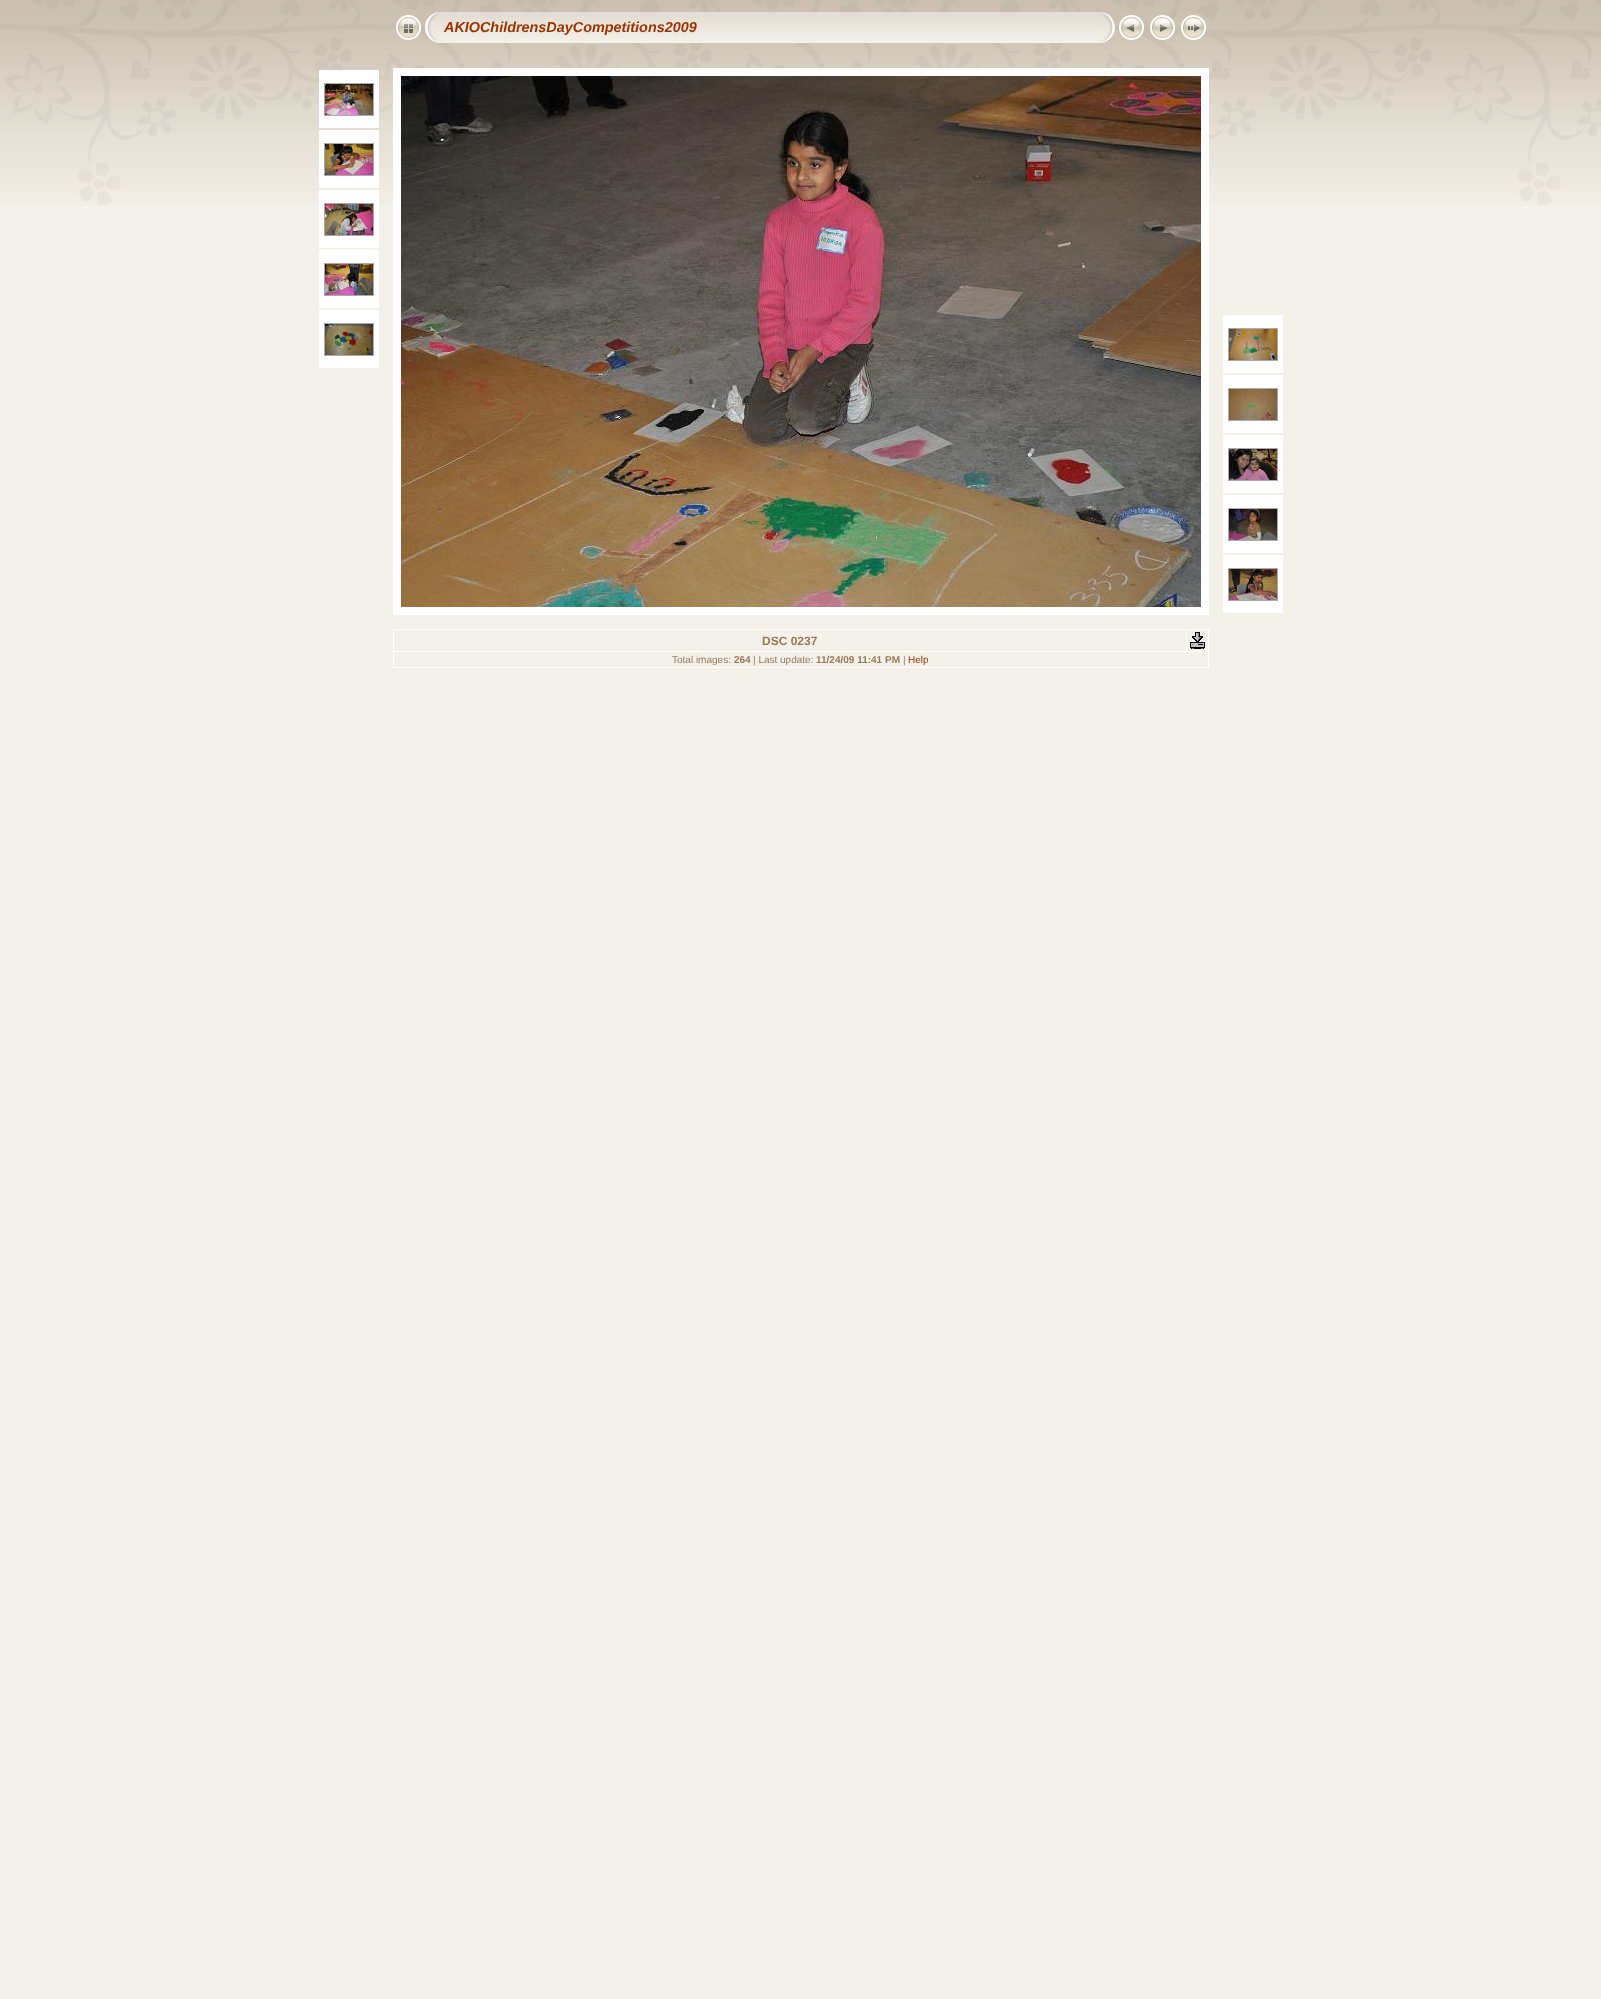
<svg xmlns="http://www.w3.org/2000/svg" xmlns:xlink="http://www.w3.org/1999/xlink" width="1601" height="1999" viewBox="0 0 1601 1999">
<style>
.cls-1{font:italic bold 14.4px Liberation Sans;fill:#993300}
.cls-2{font:bold 12px Liberation Sans;fill:#997755}
.cls-3{font:10px Liberation Sans;fill:#997755}
.cls-4{font:bold 10px Liberation Sans;fill:#997755}
.cls-5{font:10px Liberation Sans;fill:#993300}
</style>
<rect width="100%" height="100%" fill="#f4f1ea"/>
<image xlink:href="image0.png" x="0" y="0" width="1601" height="206"/>
<image xlink:href="image1.png" x="396" y="15" width="25" height="25"/>
<image xlink:href="image2.png" x="425" y="12" width="19" height="31"/>
<image xlink:href="image3.png" x="444" y="12" width="652" height="31"/>
<image xlink:href="image4.png" x="1096" y="12" width="19" height="31"/>
<image xlink:href="image5.png" x="1119" y="15" width="25" height="25"/>
<image xlink:href="image6.png" x="1150" y="15" width="25" height="25"/>
<image xlink:href="image7.png" x="1181" y="15" width="25" height="25"/>
<rect fill="#ffffff" x="319" y="70" width="60" height="58"/>
<rect fill="none" stroke="#aaaaaa" x="324.5" y="83.5" width="49" height="32"/>
<image xlink:href="image8.png" x="325" y="84" width="48" height="31"/>
<rect fill="#ffffff" x="319" y="130" width="60" height="58"/>
<rect fill="none" stroke="#aaaaaa" x="324.5" y="143.5" width="49" height="32"/>
<image xlink:href="image9.png" x="325" y="144" width="48" height="31"/>
<rect fill="#ffffff" x="319" y="190" width="60" height="58"/>
<rect fill="none" stroke="#aaaaaa" x="324.5" y="203.5" width="49" height="32"/>
<image xlink:href="image10.png" x="325" y="204" width="48" height="31"/>
<rect fill="#ffffff" x="319" y="250" width="60" height="58"/>
<rect fill="none" stroke="#aaaaaa" x="324.5" y="263.5" width="49" height="32"/>
<image xlink:href="image11.png" x="325" y="264" width="48" height="31"/>
<rect fill="#ffffff" x="319" y="310" width="60" height="58"/>
<rect fill="none" stroke="#aaaaaa" x="324.5" y="323.5" width="49" height="32"/>
<image xlink:href="image12.png" x="325" y="324" width="48" height="31"/>
<rect fill="none" stroke="#ffffff" stroke-width="8" x="397" y="72" width="808" height="539"/>
<image xlink:href="image13.png" x="401" y="76" width="800" height="531"/>
<rect fill="#ffffff" x="1223" y="315" width="60" height="58"/>
<rect fill="none" stroke="#aaaaaa" x="1228.5" y="328.5" width="49" height="32"/>
<image xlink:href="image14.png" x="1229" y="329" width="48" height="31"/>
<rect fill="#ffffff" x="1223" y="375" width="60" height="58"/>
<rect fill="none" stroke="#aaaaaa" x="1228.5" y="388.5" width="49" height="32"/>
<image xlink:href="image15.png" x="1229" y="389" width="48" height="31"/>
<rect fill="#ffffff" x="1223" y="435" width="60" height="58"/>
<rect fill="none" stroke="#aaaaaa" x="1228.5" y="448.5" width="49" height="32"/>
<image xlink:href="image16.png" x="1229" y="449" width="48" height="31"/>
<rect fill="#ffffff" x="1223" y="495" width="60" height="58"/>
<rect fill="none" stroke="#aaaaaa" x="1228.5" y="508.5" width="49" height="32"/>
<image xlink:href="image17.png" x="1229" y="509" width="48" height="31"/>
<rect fill="#ffffff" x="1223" y="555" width="60" height="58"/>
<rect fill="none" stroke="#aaaaaa" x="1228.5" y="568.5" width="49" height="32"/>
<image xlink:href="image18.png" x="1229" y="569" width="48" height="31"/>
<rect fill="#ffffff" x="393" y="629" width="816" height="1"/>
<rect fill="#ffffff" x="1208" y="629" width="1" height="39"/>
<rect fill="#ffffff" x="393" y="667" width="816" height="1"/>
<rect fill="#ffffff" x="393" y="629" width="1" height="39"/>
<rect fill="#ffffff" x="393" y="651" width="816" height="1"/>
<rect fill="#ffffff" x="1186" y="629" width="1" height="23"/>
<image xlink:href="image19.png" x="1190" y="632" width="15" height="17"/>
<text class="cls-1" x="444" y="32">AKIOChildrensDayCompetitions2009</text>
<text class="cls-2" x="762" y="645">DSC 0237</text>
<text class="cls-3" x="672" y="663">Total images:</text>
<text class="cls-4" x="734" y="663">264</text>
<text class="cls-3" x="753" y="663">| Last update:</text>
<text class="cls-4" x="816" y="663">11/24/09 11:41 PM</text>
<text class="cls-3" x="903" y="663">|</text>
<text class="cls-5" x="908" y="663">Help</text>
</svg>
